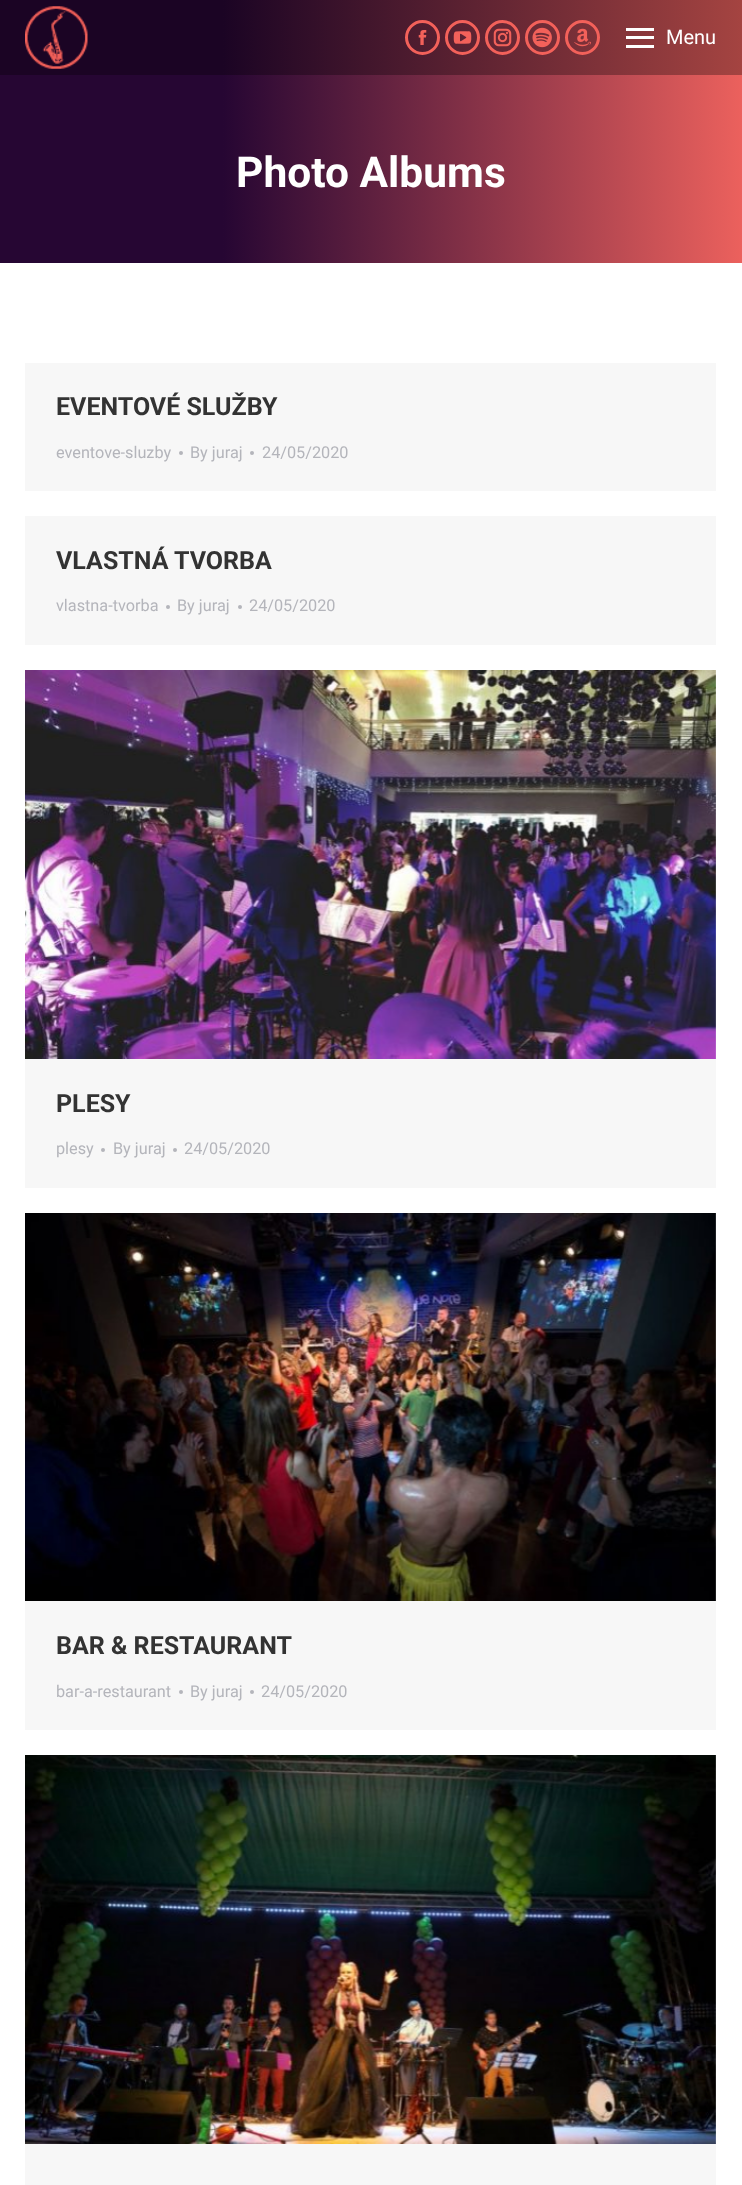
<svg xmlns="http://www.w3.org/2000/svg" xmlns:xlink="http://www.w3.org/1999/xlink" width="742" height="2185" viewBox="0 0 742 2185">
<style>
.cls-1{font:20px Roboto;fill:#ffffff}
.cls-2{font:bold 42.5px Roboto;fill:#ffffff}
.cls-3{font:bold 25px Roboto;fill:#333333}
.cls-4{font:16.25px Roboto;fill:#b4b5bb}
</style>
<defs>
<linearGradient id="g1" gradientUnits="userSpaceOnUse" x1="0" y1="131" x2="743" y2="131"><stop offset="0.3" stop-color="#1b0424"/><stop offset="1" stop-color="#a54441"/></linearGradient>
<linearGradient id="g2" gradientUnits="userSpaceOnUse" x1="0" y1="131" x2="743" y2="131"><stop offset="0.3" stop-color="#260633"/><stop offset="1" stop-color="#ec615d"/></linearGradient>
</defs>
<rect width="100%" height="100%" fill="#ffffff"/>
<rect fill="url(#g1)" x="0" y="0" width="742" height="75"/>
<image xlink:href="image0.png" x="25" y="6" width="63" height="63"/>
<circle fill="none" stroke="#f3615a" stroke-width="3" cx="422.5" cy="37.5" r="16"/>
<image xlink:href="image1.png" x="418" y="30" width="9" height="15"/>
<circle fill="none" stroke="#f3615a" stroke-width="3" cx="462.5" cy="37.5" r="16"/>
<image xlink:href="image2.png" x="453" y="31" width="19" height="13"/>
<circle fill="none" stroke="#f3615a" stroke-width="3" cx="502.5" cy="37.5" r="16"/>
<image xlink:href="image3.png" x="493" y="28" width="19" height="19"/>
<circle fill="none" stroke="#f3615a" stroke-width="3" cx="542.5" cy="37.5" r="16"/>
<image xlink:href="image4.png" x="532" y="27" width="20" height="21"/>
<circle fill="none" stroke="#f3615a" stroke-width="3" cx="582.5" cy="37.5" r="16"/>
<image xlink:href="image5.png" x="574" y="28" width="17" height="19"/>
<rect fill="#ffffff" x="626" y="28" width="28" height="3"/>
<rect fill="#ffffff" x="626" y="36" width="28" height="3"/>
<rect fill="#ffffff" x="626" y="45" width="28" height="3"/>
<rect fill="url(#g2)" x="0" y="75" width="742" height="188"/>
<rect fill="#f7f7f7" x="25" y="363" width="691" height="128"/>
<circle fill="#b4b5bb" cx="181" cy="453" r="2"/>
<circle fill="#b4b5bb" cx="252" cy="453" r="2"/>
<rect fill="#f7f7f7" x="25" y="516" width="691" height="129"/>
<circle fill="#b4b5bb" cx="168" cy="607" r="2"/>
<circle fill="#b4b5bb" cx="240" cy="607" r="2"/>
<rect fill="#f7f7f7" x="25" y="670" width="691" height="518"/>
<image xlink:href="image6.png" x="25" y="670" width="691" height="389"/>
<circle fill="#b4b5bb" cx="103" cy="1150" r="2"/>
<circle fill="#b4b5bb" cx="175" cy="1150" r="2"/>
<rect fill="#f7f7f7" x="25" y="1213" width="691" height="517"/>
<image xlink:href="image7.png" x="25" y="1213" width="691" height="388"/>
<circle fill="#b4b5bb" cx="181" cy="1692" r="2"/>
<circle fill="#b4b5bb" cx="252" cy="1692" r="2"/>
<rect fill="#f7f7f7" x="25" y="1755" width="691" height="430"/>
<image xlink:href="image8.png" x="25" y="1755" width="691" height="389"/>
<text class="cls-1" x="666" y="44">Menu</text>
<text class="cls-2" x="236" y="187">Photo Albums</text>
<text class="cls-3" x="56" y="415">EVENTOVÉ SLUŽBY</text>
<text class="cls-4" x="56" y="458">eventove-sluzby</text>
<text class="cls-4" x="190" y="458">By juraj</text>
<text class="cls-4" x="262" y="458">24/05/2020</text>
<text class="cls-3" x="56" y="569">VLASTNÁ TVORBA</text>
<text class="cls-4" x="56" y="611">vlastna-tvorba</text>
<text class="cls-4" x="177" y="611">By juraj</text>
<text class="cls-4" x="249" y="611">24/05/2020</text>
<text class="cls-3" x="56" y="1112">PLESY</text>
<text class="cls-4" x="56" y="1154">plesy</text>
<text class="cls-4" x="113" y="1154">By juraj</text>
<text class="cls-4" x="184" y="1154">24/05/2020</text>
<text class="cls-3" x="56" y="1654">BAR &amp; RESTAURANT</text>
<text class="cls-4" x="56" y="1697">bar-a-restaurant</text>
<text class="cls-4" x="190" y="1697">By juraj</text>
<text class="cls-4" x="261" y="1697">24/05/2020</text>
</svg>
